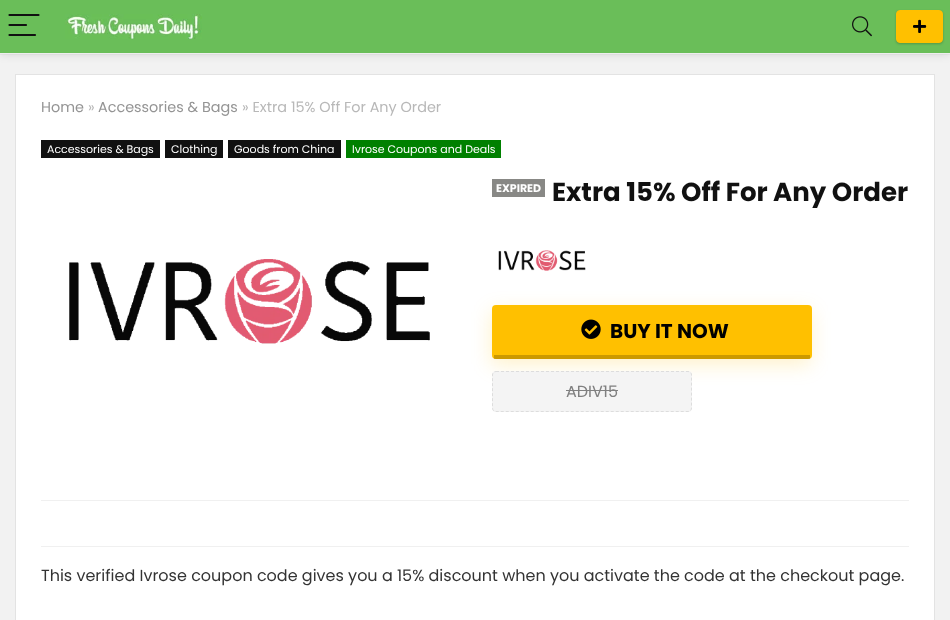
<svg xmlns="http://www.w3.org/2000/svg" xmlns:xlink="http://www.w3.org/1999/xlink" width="950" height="620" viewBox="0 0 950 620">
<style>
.cls-1{font:14.4px Poppins;fill:#949494}
.cls-2{font:14.4px Poppins;fill:#b8b8b8}
.cls-3{font:11px Poppins;fill:#ffffff}
.cls-4{font:bold 11px Poppins;fill:#ffffff}
.cls-5{font:bold 26px Poppins;fill:#111111}
.cls-6{font:bold 20px Poppins;fill:#000000}
.cls-7{font:16px Poppins;fill:#808080}
.cls-8{font:16px Poppins;fill:#333333}
</style>
<rect width="100%" height="100%" fill="#f2f2f2"/>
<rect fill="none" stroke="#ebebeb" x="-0.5" y="-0.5" width="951" height="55"/>
<rect fill="#000000" fill-opacity="0.1" filter="blur(4px)" x="0" y="1" width="950" height="54"/>
<rect fill="#eeeeee" x="0" y="53" width="950" height="1"/>
<rect fill="#6abe59" x="0" y="0" width="950" height="53"/>
<path fill="none" stroke="#111111" stroke-width="2.2" stroke-linecap="round" d="M9.5 15H38.5M9.5 25H26M9.5 35H35"/>
<image xlink:href="image0.png" x="65" y="14" width="137" height="25"/>
<image xlink:href="image1.png" x="852" y="16" width="20" height="21"/>
<rect fill="#000000" fill-opacity="0.2" filter="blur(1px)" x="896" y="11" width="47" height="33" rx="4"/>
<rect fill="#ffc000" stroke="#ffc000" x="896.5" y="10.5" width="46" height="32" rx="3.5"/>
<image xlink:href="image2.png" x="913" y="19" width="14" height="14"/>
<rect fill="#ffffff" stroke="#e3e3e3" x="15.5" y="74.5" width="919" height="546"/>
<rect fill="#111111" x="41" y="140" width="119" height="18"/>
<rect fill="#111111" x="165" y="140" width="58" height="18"/>
<rect fill="#111111" x="228" y="140" width="113" height="18"/>
<rect fill="#008000" x="346" y="140" width="155" height="18"/>
<rect fill="#f0f0f0" x="41" y="500" width="868" height="1"/>
<image xlink:href="image3.png" x="69" y="259" width="361" height="85"/>
<rect fill="#888885" x="492" y="179" width="53" height="18"/>
<image xlink:href="image4.png" x="498" y="250" width="88" height="21"/>
<rect fill="#ffc000" fill-opacity="0.2" filter="blur(9.5px)" x="491" y="311" width="320" height="54" rx="4"/>
<rect fill="#ffc000" x="492" y="305" width="320" height="54" rx="4"/>
<rect fill="#000000" fill-opacity="0.2" x="494" y="355" width="316" height="4"/>
<image xlink:href="image5.png" x="581" y="319" width="20" height="20"/>
<rect fill="#f4f4f4" x="492" y="371" width="200" height="41" rx="4"/>
<path fill="none" stroke="#dddddd" stroke-dasharray="3 2" d="M496 371.5H688C690 371.5 691.5 373 691.5 375V408C691.5 410 690 411.5 688 411.5H496C494 411.5 492.5 410 492.5 408V375C492.5 373 494 371.5 496 371.5Z"/>
<rect fill="#808080" x="566" y="390" width="52" height="1"/>
<rect fill="#f0f0f0" x="41" y="546" width="868" height="1"/>
<text class="cls-1" x="41" y="112">Home</text>
<text class="cls-2" x="88" y="112">»</text>
<text class="cls-1" x="98" y="112">Accessories &amp; Bags</text>
<text class="cls-2" x="242" y="112">» Extra 15% Off For Any Order</text>
<text class="cls-3" x="47" y="153">Accessories &amp; Bags</text>
<text class="cls-3" x="171" y="153">Clothing</text>
<text class="cls-3" x="234" y="153">Goods from China</text>
<text class="cls-3" x="352" y="153">Ivrose Coupons and Deals</text>
<text class="cls-4" x="496" y="192">EXPIRED</text>
<text class="cls-5" x="552" y="201">Extra 15% Off For Any Order</text>
<text class="cls-6" x="610" y="338">BUY IT NOW</text>
<text class="cls-7" x="566" y="397">ADIV15</text>
<text class="cls-8" x="41" y="581">This verified Ivrose coupon code gives you a 15% discount when you activate the code at the checkout page.</text>
</svg>
